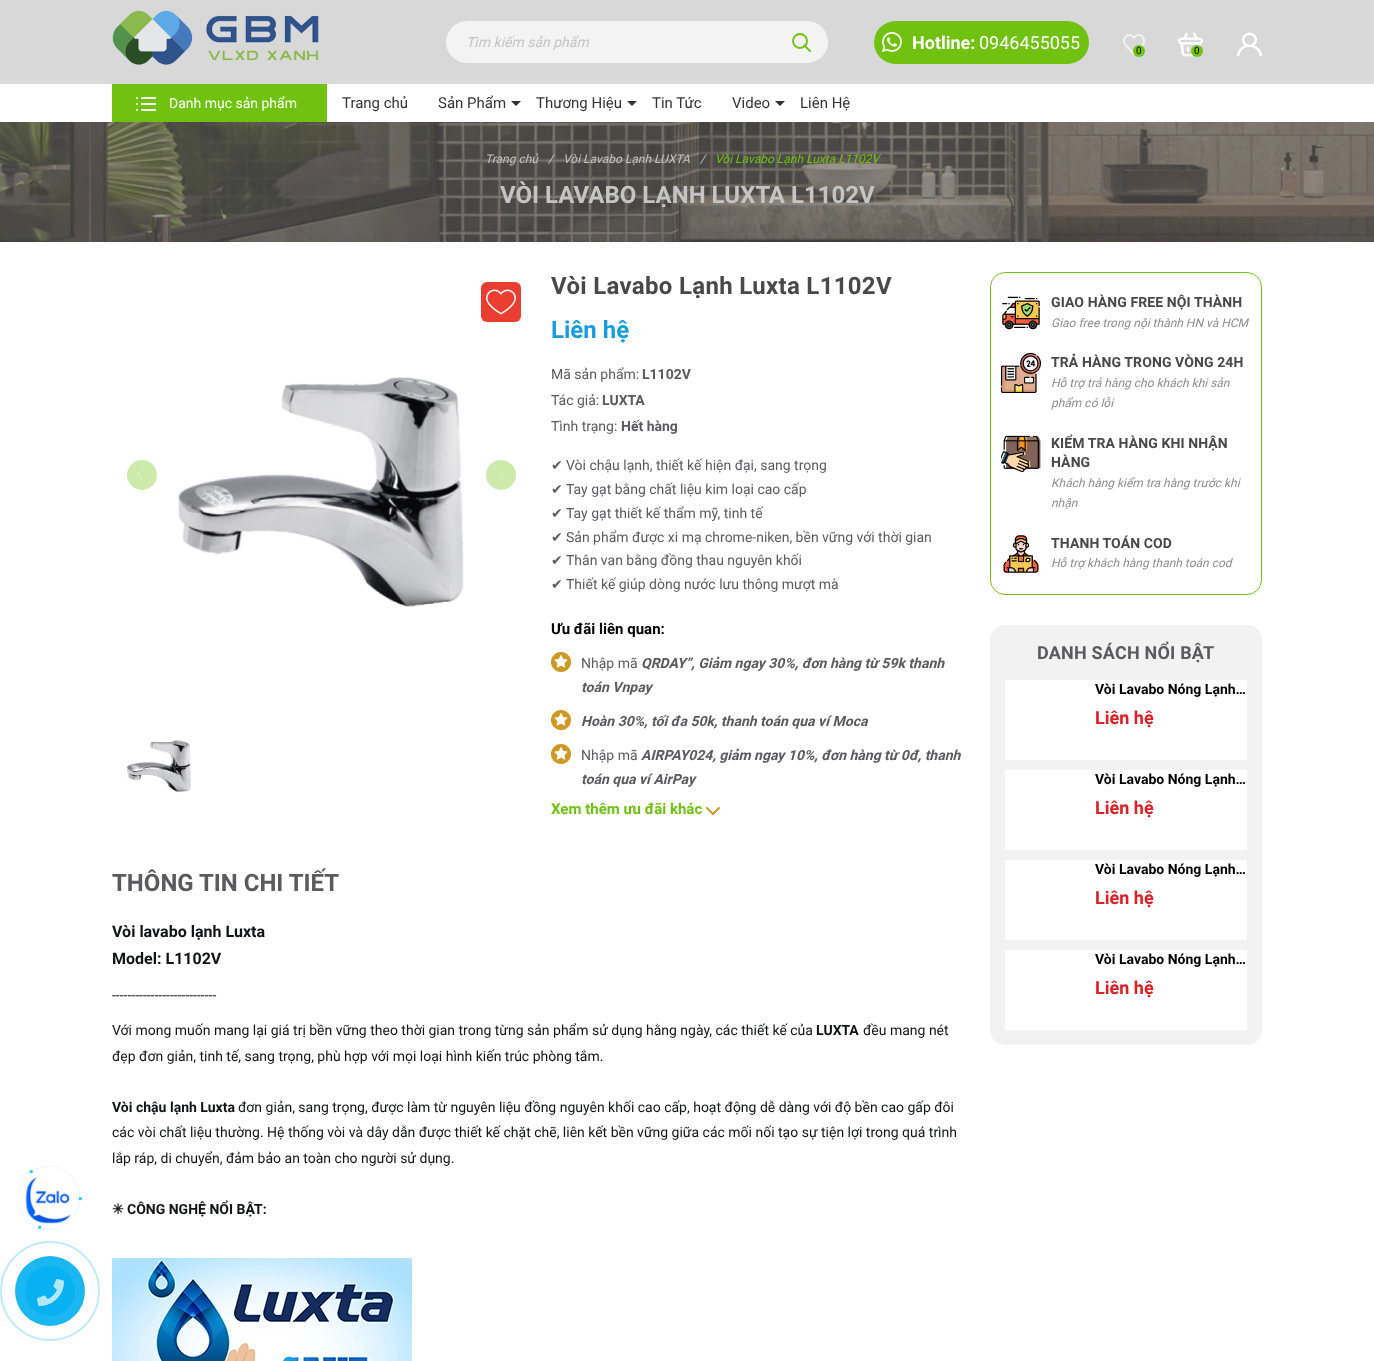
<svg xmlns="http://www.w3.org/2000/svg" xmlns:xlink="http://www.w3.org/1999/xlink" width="1374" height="1361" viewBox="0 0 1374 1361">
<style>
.cls-1{font:italic 14px Roboto;fill:#c4c4c4}
.cls-2{font:bold 18px Roboto;fill:#ffffff}
.cls-3{font:18px Roboto;fill:#ffffff}
.cls-4{font:10px Roboto;fill:#000000}
.cls-5{font:14px Roboto;fill:#ffffff}
.cls-6{font:15px Roboto;fill:#333333}
.cls-7{font:italic 12px Roboto;fill:#c4c4c4}
.cls-8{font:italic 12px Roboto;fill:#71c210}
.cls-9{font:bold 24px Roboto;fill:#c4c4c4}
.cls-10{font:bold 24px Roboto;letter-spacing:0.3px;fill:#494949}
.cls-11{font:bold 24px Roboto;fill:#199ddc}
.cls-12{font:14px Roboto;fill:#5b5b5e}
.cls-13{font:bold 14px Roboto;fill:#5b5b5e}
.cls-14{font:14px DejaVu Sans;fill:#5b5b5e}
.cls-15{font:bold 15px Roboto;fill:#000000}
.cls-16{font:italic bold 14px Roboto;fill:#5b5b5e}
.cls-17{font:bold 15px Roboto;fill:#71c210}
.cls-18{font:bold 24px Roboto;fill:#5b5b5e}
.cls-19{font:bold 16px Roboto;fill:#121314}
.cls-20{font:14px Roboto;fill:#121314}
.cls-21{font:bold 14px Roboto;fill:#121314}
.cls-22{font:bold 14px DejaVu Sans;fill:#121314}
.cls-23{font:bold 14px Roboto;letter-spacing:0.1px;fill:#494949}
.cls-24{font:italic 12px Roboto;fill:#8e8c8c}
.cls-25{font:bold 18px Roboto;letter-spacing:0.2px;fill:#5b5b5e}
.cls-26{font:bold 14px Roboto;fill:#000000}
.cls-27{font:bold 18px Roboto;fill:#dc2028}
</style>
<rect width="100%" height="100%" fill="#ffffff"/>
<rect fill="#d8d8d8" x="0" y="0" width="1374" height="84"/>
<image xlink:href="image0.png" x="112" y="10" width="207" height="55"/>
<rect fill="#f3f3f3" x="446" y="21" width="382" height="42" rx="21"/>
<path fill="none" stroke="#71c210" stroke-width="1.9" stroke-linecap="square" d="M810 51L804.5 45.5"/>
<circle fill="none" stroke="#71c210" stroke-width="1.9" cx="800" cy="41" r="7"/>
<rect fill="#71c210" x="874" y="21" width="215" height="43" rx="21.5"/>
<image xlink:href="image1.png" x="882" y="32" width="20" height="20"/>
<image xlink:href="image2.png" x="1123" y="34" width="22" height="21"/>
<circle fill="#71c210" cx="1139" cy="51" r="6"/>
<image xlink:href="image3.png" x="1178" y="32" width="25" height="25"/>
<circle fill="#71c210" cx="1197" cy="51" r="6"/>
<image xlink:href="image4.png" x="1237" y="32" width="25" height="25"/>
<rect fill="#71c210" x="112" y="84" width="215" height="38"/>
<image xlink:href="image5.png" x="136" y="97" width="20" height="14"/>
<path fill="#333333" d="M511 101H521L516 106Z"/>
<path fill="#333333" d="M627 101H637L632 106Z"/>
<path fill="#333333" d="M775 101H785L780 106Z"/>
<image xlink:href="image6.png" x="0" y="122" width="1374" height="120"/>
<image xlink:href="image7.png" x="17" y="1166" width="65" height="65"/>
<image xlink:href="image8.png" x="25" y="1177" width="46" height="47"/>
<rect fill="#eb3e32" x="481" y="282" width="40" height="40" rx="6"/>
<image xlink:href="image9.png" x="486" y="289" width="30" height="26"/>
<circle fill="#cdeaab" cx="142" cy="475" r="15"/>
<image xlink:href="image10.png" x="137" y="468" width="6" height="13"/>
<image xlink:href="image11.png" x="178" y="377" width="286" height="230"/>
<circle fill="#cdeaab" cx="501" cy="475" r="15"/>
<image xlink:href="image12.png" x="498" y="470" width="5" height="10"/>
<image xlink:href="image13.png" x="127" y="740" width="64" height="53"/>
<image xlink:href="image14.png" x="551" y="652" width="20" height="20"/>
<image xlink:href="image14.png" x="551" y="710" width="20" height="20"/>
<image xlink:href="image14.png" x="551" y="744" width="20" height="20"/>
<path fill="none" stroke="#d09824" stroke-width="2" stroke-linecap="round" stroke-linejoin="round" d="M707 808L713 814L719 808"/>
<image xlink:href="image15.png" x="112" y="1258" width="300" height="103"/>
<rect fill="none" stroke="#71c210" x="990.5" y="272.5" width="271" height="322" rx="14.5"/>
<image xlink:href="image16.png" x="1002" y="296" width="38" height="34"/>
<image xlink:href="image17.png" x="1001" y="353" width="40" height="40"/>
<image xlink:href="image18.png" x="1001" y="435" width="40" height="38"/>
<image xlink:href="image19.png" x="1003" y="535" width="36" height="38"/>
<rect fill="#f2f2f2" x="990" y="625" width="272" height="420" rx="15"/>
<rect fill="#ffffff" x="1005" y="680" width="242" height="80"/>
<rect fill="#ffffff" x="1005" y="770" width="242" height="80"/>
<rect fill="#ffffff" x="1005" y="860" width="242" height="80"/>
<rect fill="#ffffff" x="1005" y="950" width="242" height="80"/>
<circle fill="none" stroke="#bfebfc" stroke-width="2" cx="50" cy="1291" r="49"/>
<circle fill="#1ab7f3" cx="50" cy="1291" r="35"/>
<circle fill="#08b1f2" cx="50" cy="1291" r="25"/>
<image xlink:href="image20.png" x="37" y="1279" width="27" height="27"/>
<text class="cls-1" x="466" y="47">Tìm kiếm sản phẩm</text>
<text class="cls-2" x="912" y="49">Hotline:</text>
<text class="cls-3" x="979" y="49">0946455055</text>
<text class="cls-4" x="1136" y="54">0</text>
<text class="cls-4" x="1194" y="54">0</text>
<text class="cls-5" x="169" y="108">Danh mục sản phẩm</text>
<text class="cls-6" x="342" y="108">Trang chủ</text>
<text class="cls-6" x="438" y="108">Sản Phẩm</text>
<text class="cls-6" x="536" y="108">Thương Hiệu</text>
<text class="cls-6" x="652" y="108">Tin Tức</text>
<text class="cls-6" x="732" y="108">Video</text>
<text class="cls-6" x="800" y="108">Liên Hệ</text>
<text class="cls-7" x="485" y="163">Trang chủ</text>
<text class="cls-7" x="548" y="163">/</text>
<text class="cls-7" x="563" y="163">Vòi Lavabo Lạnh LUXTA</text>
<text class="cls-7" x="700" y="163">/</text>
<text class="cls-8" x="715" y="163">Vòi Lavabo Lạnh Luxta L1102V</text>
<text class="cls-9" x="500" y="203">VÒI LAVABO LẠNH LUXTA L1102V</text>
<text class="cls-10" x="551" y="294">Vòi Lavabo Lạnh Luxta L1102V</text>
<text class="cls-11" x="551" y="338">Liên hệ</text>
<text class="cls-12" x="551" y="379">Mã sản phẩm:</text>
<text class="cls-13" x="642" y="379">L1102V</text>
<text class="cls-12" x="551" y="405">Tác giả:</text>
<text class="cls-13" x="602" y="405">LUXTA</text>
<text class="cls-12" x="551" y="431">Tình trạng:</text>
<text class="cls-13" x="621" y="431">Hết hàng</text>
<text class="cls-14" x="551" y="470">✔</text>
<text class="cls-12" x="566" y="470">Vòi chậu lạnh, thiết kế hiện đại, sang trọng</text>
<text class="cls-14" x="551" y="494">✔</text>
<text class="cls-12" x="566" y="494">Tay gạt bằng chất liệu kim loại cao cấp</text>
<text class="cls-14" x="551" y="518">✔</text>
<text class="cls-12" x="566" y="518">Tay gạt thiết kế thẩm mỹ, tinh tế</text>
<text class="cls-14" x="551" y="542">✔</text>
<text class="cls-12" x="566" y="542">Sản phẩm được xi mạ chrome-niken, bền vững với thời gian</text>
<text class="cls-14" x="551" y="565">✔</text>
<text class="cls-12" x="566" y="565">Thân van bằng đồng thau nguyên khối</text>
<text class="cls-14" x="551" y="589">✔</text>
<text class="cls-12" x="566" y="589">Thiết kế giúp dòng nước lưu thông mượt mà</text>
<text class="cls-15" x="551" y="634">Ưu đãi liên quan:</text>
<text class="cls-12" x="581" y="668">Nhập mã</text>
<text class="cls-16" x="641" y="668">QRDAY”, Giảm ngay 30%, đơn hàng từ 59k thanh</text>
<text class="cls-16" x="581" y="692">toán Vnpay</text>
<text class="cls-16" x="581" y="726">Hoàn 30%, tối đa 50k, thanh toán qua ví Moca</text>
<text class="cls-12" x="581" y="760">Nhập mã</text>
<text class="cls-16" x="641" y="760">AIRPAY024, giảm ngay 10%, đơn hàng từ 0đ, thanh</text>
<text class="cls-16" x="581" y="784">toán qua ví AirPay</text>
<text class="cls-17" x="551" y="814">Xem thêm ưu đãi khác</text>
<text class="cls-18" x="112" y="891">THÔNG TIN CHI TIẾT</text>
<text class="cls-19"><tspan x="112" y="937">Vòi lavabo lạnh Luxta</tspan><tspan x="112" y="964">Model: L1102V</tspan></text>
<text class="cls-20" x="112" y="1000">---------------------------</text>
<text class="cls-20" x="112" y="1035">Với mong muốn mang lại giá trị bền vững theo thời gian trong từng sản phẩm sử dụng hằng ngày, các thiết kế của</text>
<text class="cls-21" x="816" y="1035">LUXTA</text>
<text class="cls-20" x="863" y="1035">đều mang nét</text>
<text class="cls-20" x="112" y="1061">đẹp đơn giản, tinh tế, sang trọng, phù hợp với mọi loại hình kiến trúc phòng tắm.</text>
<text class="cls-21" x="112" y="1112">Vòi chậu lạnh Luxta</text>
<text class="cls-20" x="238" y="1112">đơn giản, sang trọng, được làm từ nguyên liệu đồng nguyên khối cao cấp, hoạt động dễ dàng với độ bền cao gấp đôi</text>
<text class="cls-20"><tspan x="112" y="1137">các vòi chất liệu thường. Hệ thống vòi và dây dẫn được thiết kế chặt chẽ, liên kết bền vững giữa các mối nối tạo sự tiện lợi trong quá trình</tspan><tspan x="112" y="1163">lắp ráp, di chuyển, đảm bảo an toàn cho người sử dụng.</tspan></text>
<text class="cls-22" x="112" y="1214">✳</text>
<text class="cls-21" x="127" y="1214">CÔNG NGHỆ NỔI BẬT:</text>
<text class="cls-23" x="1051" y="307">GIAO HÀNG FREE NỘI THÀNH</text>
<text class="cls-24" x="1051" y="327">Giao free trong nội thành HN và HCM</text>
<text class="cls-23" x="1051" y="367">TRẢ HÀNG TRONG VÒNG 24H</text>
<text class="cls-24"><tspan x="1051" y="387">Hỗ trợ trả hàng cho khách khi sản</tspan><tspan x="1051" y="407">phẩm có lỗi</tspan></text>
<text class="cls-23"><tspan x="1051" y="448">KIỂM TRA HÀNG KHI NHẬN</tspan><tspan x="1051" y="467">HÀNG</tspan></text>
<text class="cls-24"><tspan x="1051" y="487">Khách hàng kiểm tra hàng trước khi</tspan><tspan x="1051" y="507">nhận</tspan></text>
<text class="cls-23" x="1051" y="548">THANH TOÁN COD</text>
<text class="cls-24" x="1051" y="567">Hỗ trợ khách hàng thanh toán cod</text>
<text class="cls-25" x="1037" y="659">DANH SÁCH NỔI BẬT</text>
<text class="cls-26" x="1095" y="694">Vòi Lavabo Nóng Lạnh…</text>
<text class="cls-27" x="1095" y="724">Liên hệ</text>
<text class="cls-26" x="1095" y="784">Vòi Lavabo Nóng Lạnh…</text>
<text class="cls-27" x="1095" y="814">Liên hệ</text>
<text class="cls-26" x="1095" y="874">Vòi Lavabo Nóng Lạnh…</text>
<text class="cls-27" x="1095" y="904">Liên hệ</text>
<text class="cls-26" x="1095" y="964">Vòi Lavabo Nóng Lạnh…</text>
<text class="cls-27" x="1095" y="994">Liên hệ</text>
</svg>
